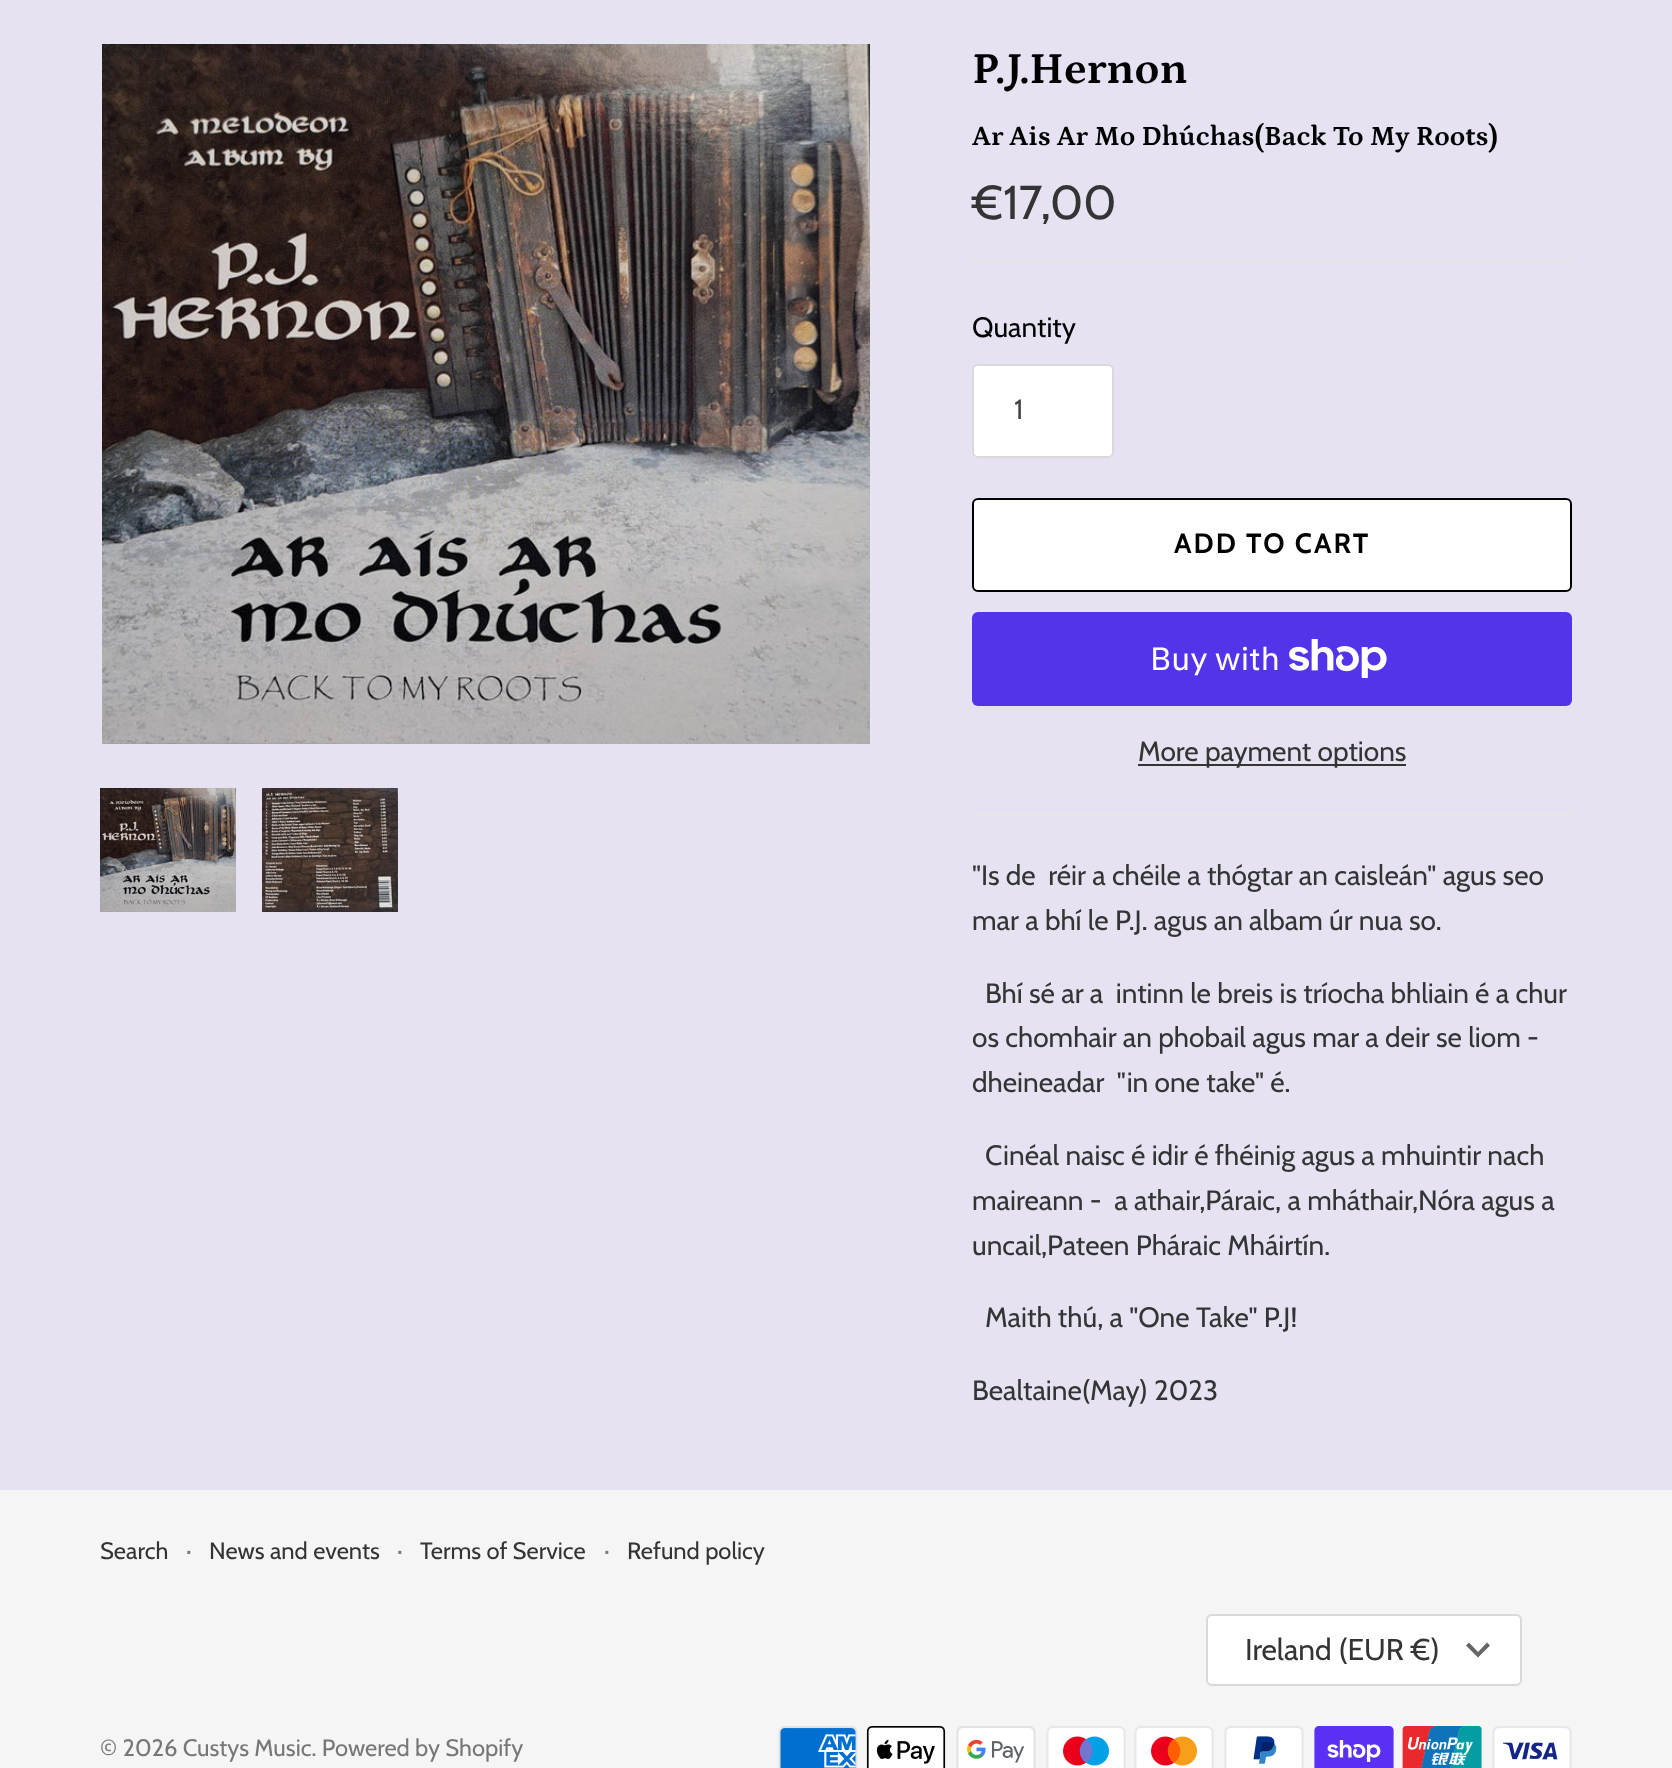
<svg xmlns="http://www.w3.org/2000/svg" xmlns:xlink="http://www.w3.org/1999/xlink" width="1672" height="1768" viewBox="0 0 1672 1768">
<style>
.cls-1{font:bold 45px Petrona;fill:#000000}
.cls-2{font:bold 28px Petrona;fill:#000000}
.cls-3{font:47.5px Cabin;fill:#343434}
.cls-4{font:28px Cabin;fill:#000000}
.cls-5{font:28px Cabin;fill:#444444}
.cls-6{font:bold 28px Cabin;letter-spacing:2px;fill:#000000}
.cls-7{font:32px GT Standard;fill:#ffffff}
.cls-8{font:28px Cabin;fill:#343434}
.cls-9{font:23.75px Cabin;fill:#343434}
.cls-10{font:23.75px Cabin;fill:#777777}
.cls-11{font:30px Cabin;fill:#343434}
</style>
<rect width="100%" height="100%" fill="#e6e2f2"/>
<rect fill="none" stroke="#e6e4ee" stroke-width="2" x="101" y="43" width="770" height="704"/>
<image xlink:href="image0.png" x="102" y="44" width="768" height="700"/>
<image xlink:href="image1.png" x="100" y="788" width="136" height="124"/>
<image xlink:href="image2.png" x="262" y="788" width="136" height="124"/>
<rect fill="#e7e7e7" x="972" y="260" width="600" height="2"/>
<rect fill="#ffffff" x="972" y="364" width="142" height="94" rx="6"/>
<rect fill="none" stroke="#000000" stroke-opacity="0.15" stroke-width="2" x="973" y="365" width="140" height="92" rx="5"/>
<rect fill="#ffffff" stroke="#000000" stroke-width="2" x="973" y="499" width="598" height="92" rx="5"/>
<rect fill="#5433eb" x="972" y="612" width="600" height="94" rx="6"/>
<image xlink:href="image3.png" x="1289" y="639" width="98" height="39"/>
<rect fill="#343434" x="1138" y="764" width="268" height="2"/>
<rect fill="#e7e7e7" x="972" y="814" width="600" height="2"/>
<rect fill="#f5f5f5" x="0" y="1490" width="1672" height="278"/>
<rect fill="#ffffff" stroke="#d9d9d9" stroke-width="2" x="1207" y="1615" width="314" height="70" rx="5"/>
<path fill="#666666" d="M1469 1642.5L1478 1652L1487 1642.5L1490 1645.5L1478 1657.5L1466 1645.5Z"/>
<image xlink:href="image4.png" x="778" y="1726" width="80" height="42"/>
<image xlink:href="image5.png" x="866" y="1726" width="80" height="42"/>
<image xlink:href="image6.png" x="956" y="1726" width="80" height="42"/>
<image xlink:href="image7.png" x="1046" y="1726" width="80" height="42"/>
<image xlink:href="image8.png" x="1134" y="1726" width="80" height="42"/>
<image xlink:href="image9.png" x="1224" y="1726" width="80" height="42"/>
<image xlink:href="image10.png" x="1314" y="1726" width="80" height="42"/>
<image xlink:href="image11.png" x="1402" y="1726" width="80" height="42"/>
<image xlink:href="image12.png" x="1492" y="1726" width="80" height="42"/>
<text class="cls-1" x="972" y="83">P.J.Hernon</text>
<text class="cls-2" x="972" y="145">Ar Ais Ar Mo Dhúchas(Back To My Roots)</text>
<text class="cls-3" x="972" y="219">€17,00</text>
<text class="cls-4" x="972" y="337">Quantity</text>
<text class="cls-5" x="1014" y="419">1</text>
<text class="cls-6" x="1174" y="553">ADD TO CART</text>
<text class="cls-7" x="1150" y="670">Buy with</text>
<text class="cls-8" x="1138" y="761">More payment options</text>
<text class="cls-8" xml:space="preserve"><tspan x="972" y="885">"Is de  réir a chéile a thógtar an caisleán" agus seo</tspan><tspan x="972" y="930">mar a bhí le P.J. agus an albam úr nua so.</tspan></text>
<text class="cls-8" xml:space="preserve" x="985" y="1003">Bhí sé ar a  intinn le breis is tríocha bhliain é a chur</text>
<text class="cls-8" xml:space="preserve"><tspan x="972" y="1047">os chomhair an phobail agus mar a deir se liom -</tspan><tspan x="972" y="1092">dheineadar  "in one take" é.</tspan></text>
<text class="cls-8" x="985" y="1165">Cinéal naisc é idir é fhéinig agus a mhuintir nach</text>
<text class="cls-8" xml:space="preserve"><tspan x="972" y="1210">maireann -  a athair,Páraic, a mháthair,Nóra agus a</tspan><tspan x="972" y="1255">uncail,Pateen Pháraic Mháirtín.</tspan></text>
<text class="cls-8" x="985" y="1327">Maith thú, a "One Take" P.J!</text>
<text class="cls-8" x="972" y="1400">Bealtaine(May) 2023</text>
<text class="cls-9" x="100" y="1559">Search</text>
<text class="cls-10" x="186" y="1559">·</text>
<text class="cls-9" x="209" y="1559">News and events</text>
<text class="cls-10" x="397" y="1559">·</text>
<text class="cls-9" x="420" y="1559">Terms of Service</text>
<text class="cls-10" x="604" y="1559">·</text>
<text class="cls-9" x="627" y="1559">Refund policy</text>
<text class="cls-11" x="1245" y="1660">Ireland (EUR €)</text>
<text class="cls-10" x="100" y="1756">© 2026 Custys Music. Powered by Shopify</text>
</svg>
